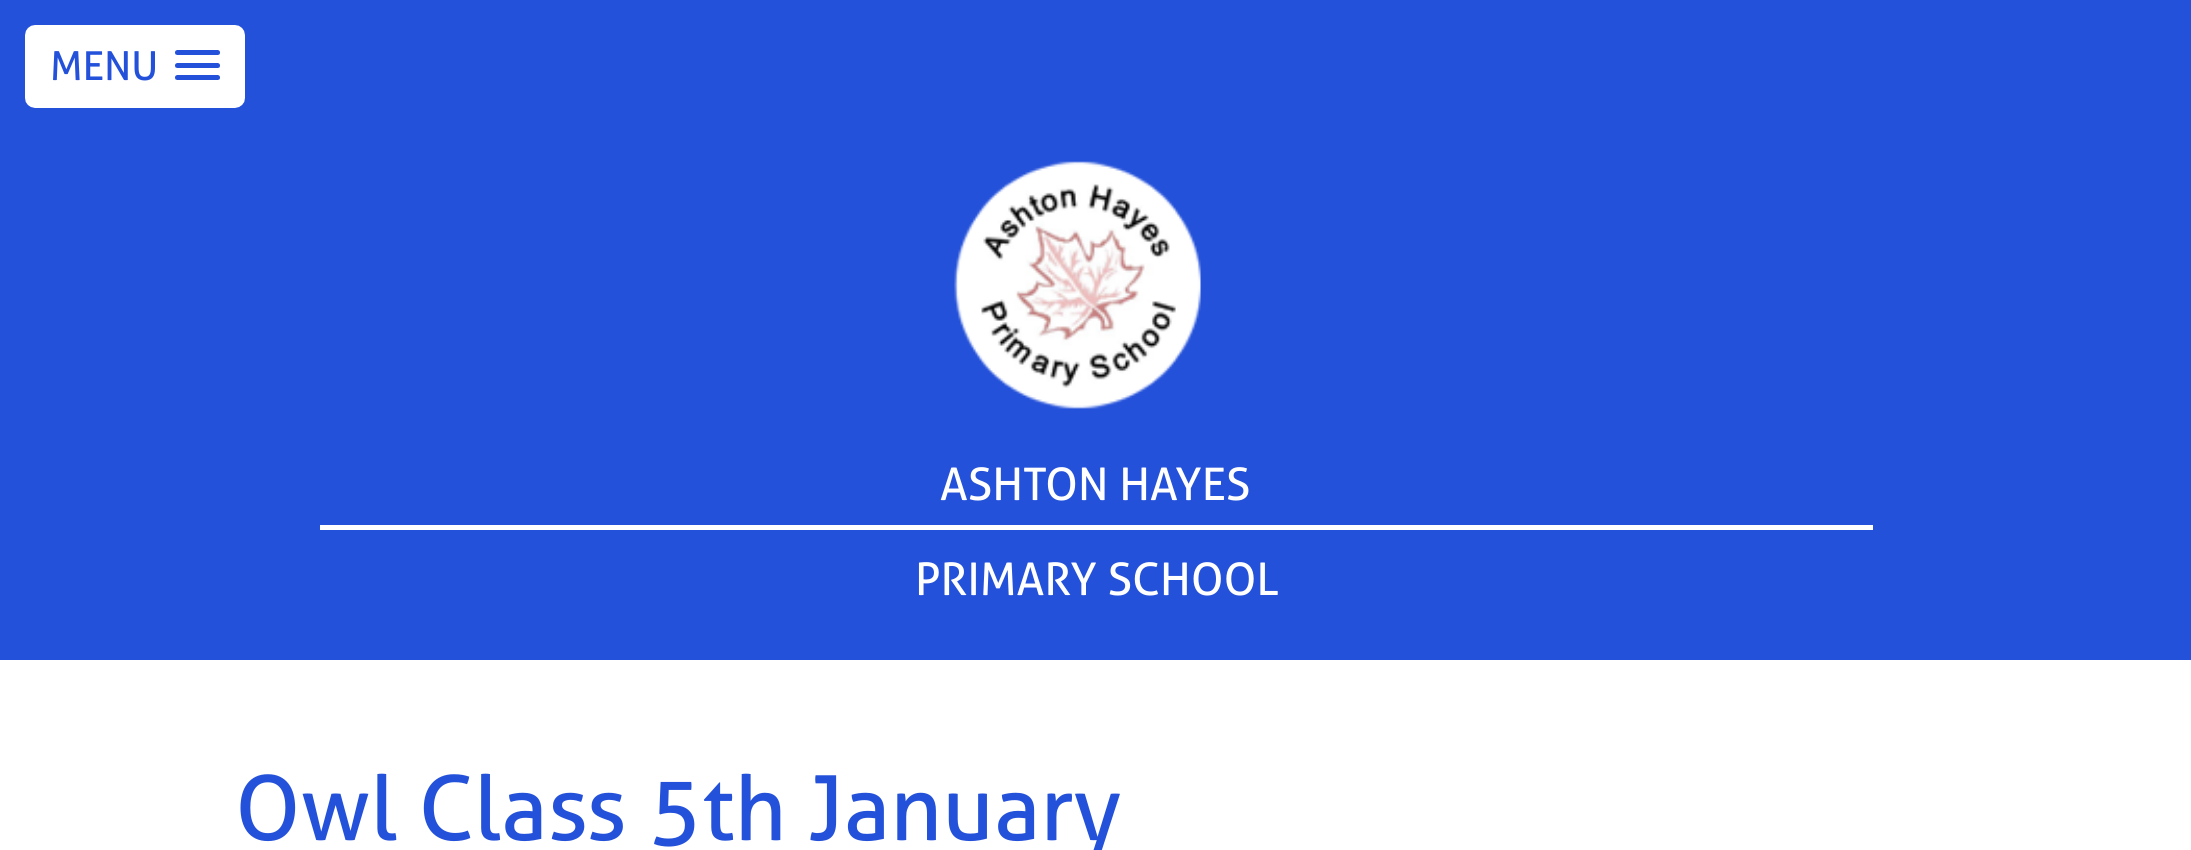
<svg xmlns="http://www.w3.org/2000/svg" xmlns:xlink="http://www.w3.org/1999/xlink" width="2191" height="850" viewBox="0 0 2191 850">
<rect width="100%" height="100%" fill="#ffffff"/>
<rect fill="#2451d9" x="0" y="0" width="2191" height="660"/>
<rect fill="#ffffff" x="25" y="25" width="220" height="83" rx="10"/>
<image xlink:href="image0.png" x="53" y="51" width="102" height="30"/>
<rect fill="#2451d9" x="175" y="50" width="45" height="5" rx="2.5"/>
<rect fill="#2451d9" x="175" y="63" width="45" height="5" rx="2.5"/>
<rect fill="#2451d9" x="175" y="75" width="45" height="5" rx="2.5"/>
<image xlink:href="image1.png" x="954" y="161" width="247" height="248"/>
<image xlink:href="image2.png" x="940" y="467" width="309" height="34"/>
<rect fill="#ffffff" x="320" y="525" width="1553" height="5"/>
<image xlink:href="image3.png" x="918" y="562" width="360" height="34"/>
<image xlink:href="image4.png" x="240" y="773" width="880" height="77"/>
</svg>
